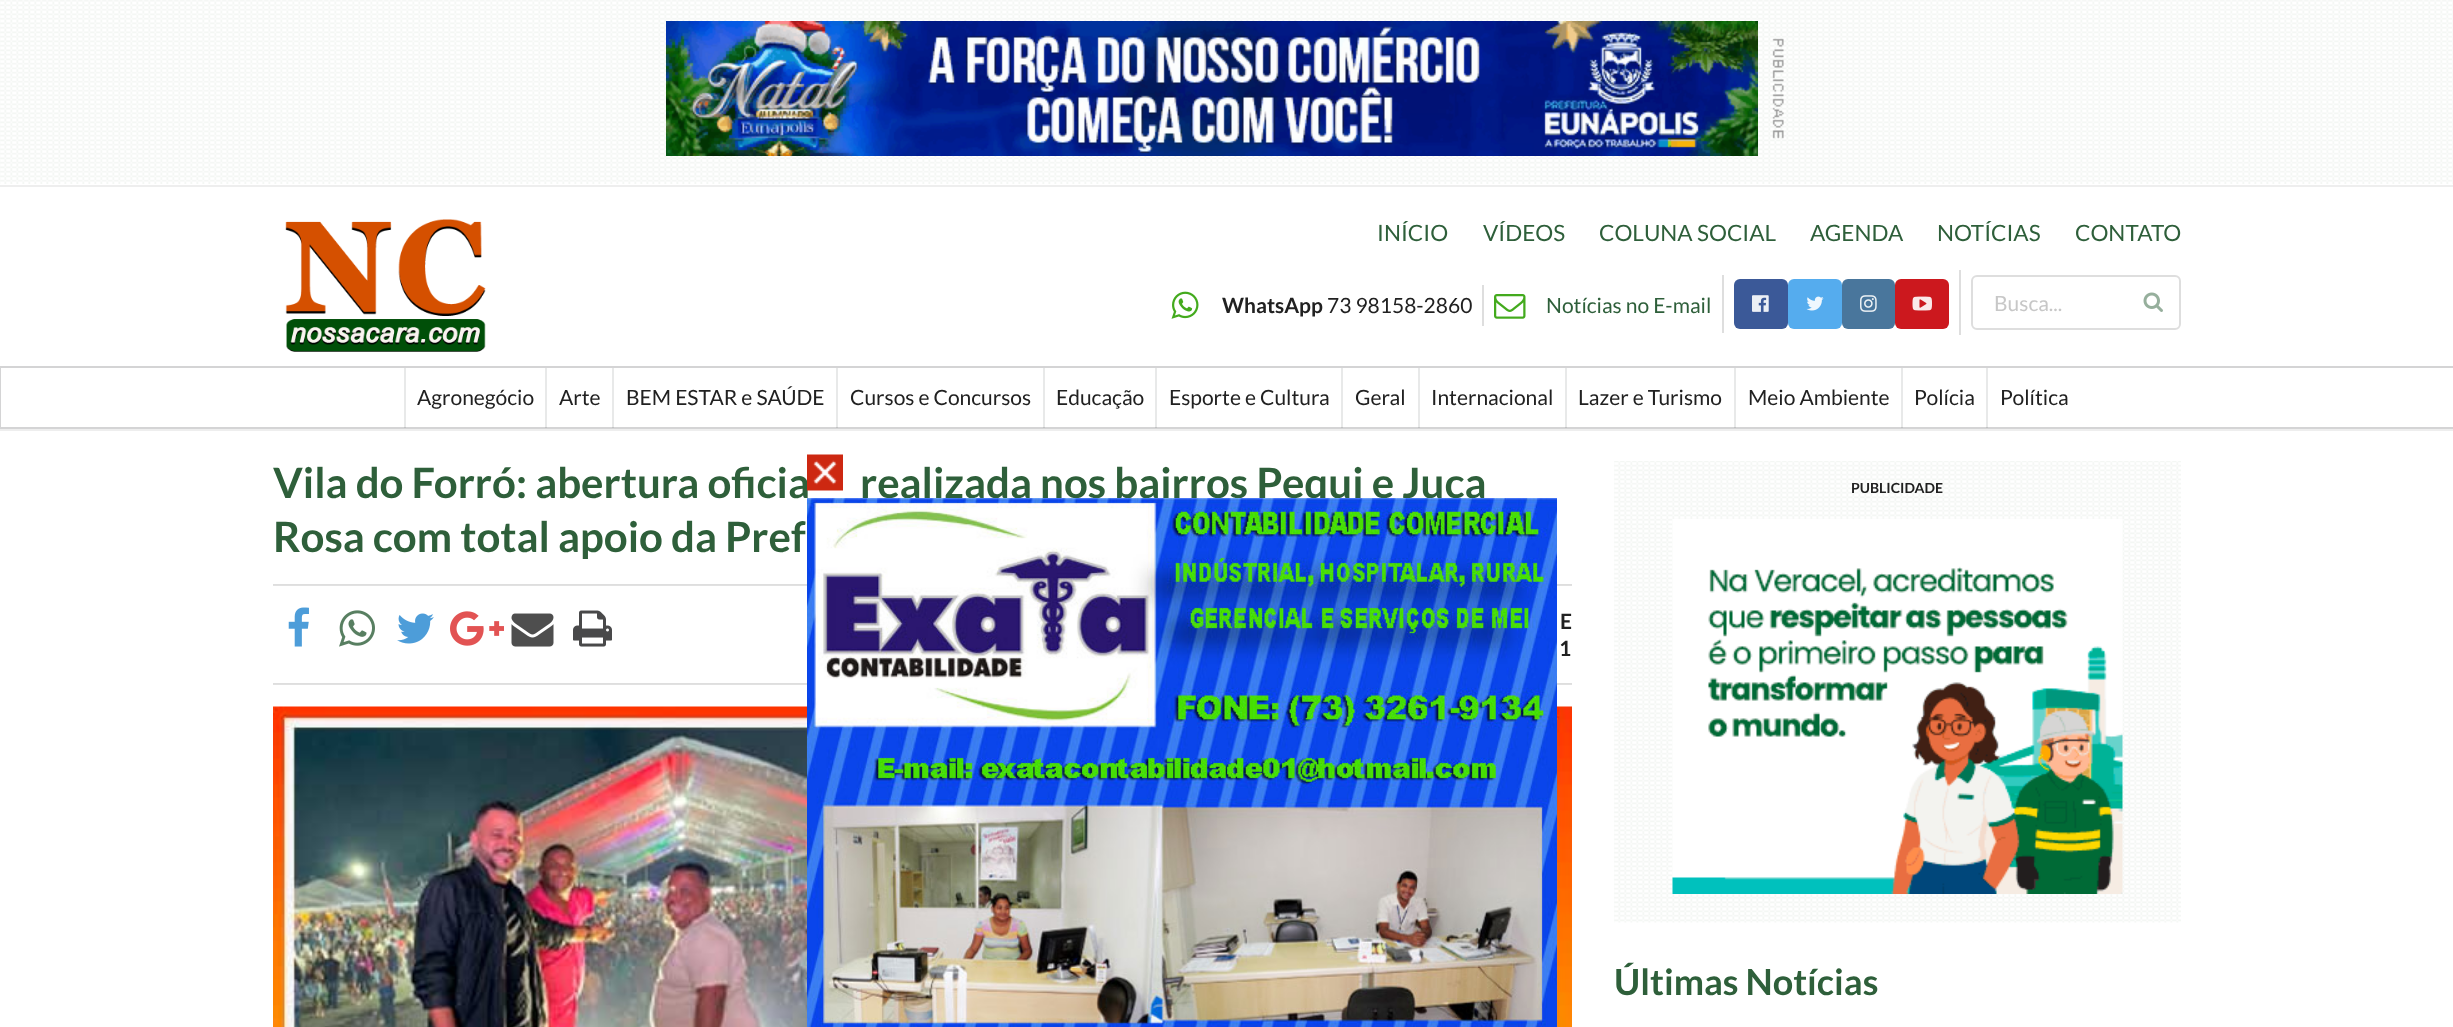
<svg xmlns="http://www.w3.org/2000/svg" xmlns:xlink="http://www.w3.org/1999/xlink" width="2453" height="1027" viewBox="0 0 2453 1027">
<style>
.cls-1{font:22.5px Lato;fill:#2e5f3a}
.cls-2{font:bold 21px Lato;fill:#212121}
.cls-3{font:21px Lato;fill:#212121}
.cls-4{font:21px Lato;fill:#2e5f3a}
.cls-5{font:21px Lato;fill:#c7c7c7}
.cls-6{font:bold 42px Lato;fill:#2e5f3a}
.cls-7{font:bold 14px Lato;fill:#212121}
.cls-8{font:bold 36px Lato;fill:#2e5f3a}
</style>
<rect width="100%" height="100%" fill="#ffffff"/>
<image xlink:href="image0.png" x="0" y="0" width="2453" height="184"/>
<image xlink:href="image1.png" x="666" y="21" width="1092" height="135"/>
<image xlink:href="image2.png" x="1772" y="38" width="12" height="101"/>
<rect fill="#eeeeee" x="0" y="185" width="2453" height="2"/>
<rect fill="#eeeeee" x="0" y="429" width="2453" height="2"/>
<image xlink:href="image3.png" x="285" y="219" width="201" height="133"/>
<image xlink:href="image4.png" x="1171" y="291" width="28" height="28"/>
<rect fill="#dedede" x="1482" y="285" width="2" height="41"/>
<image xlink:href="image5.png" x="1494" y="294" width="32" height="25"/>
<rect fill="#dedede" x="1722" y="275" width="2" height="58"/>
<rect fill="#3b5998" x="1734" y="279" width="54" height="50" rx="6"/>
<image xlink:href="image6.png" x="1752" y="295" width="17" height="17"/>
<rect fill="#55acee" x="1788" y="279" width="54" height="50" rx="6"/>
<image xlink:href="image7.png" x="1806" y="296" width="18" height="15"/>
<rect fill="#49769c" x="1842" y="279" width="53" height="50" rx="6"/>
<image xlink:href="image8.png" x="1860" y="295" width="17" height="17"/>
<rect fill="#cc181e" x="1895" y="279" width="54" height="50" rx="6"/>
<image xlink:href="image9.png" x="1912" y="296" width="20" height="15"/>
<rect fill="#dedede" x="1959" y="270" width="2" height="65"/>
<rect fill="none" stroke="#dedede" stroke-width="2" x="1972" y="276" width="208" height="53" rx="5"/>
<image xlink:href="image10.png" x="2143" y="292" width="20" height="20"/>
<rect fill="none" stroke="#d4d4d5" stroke-width="2" x="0" y="367" width="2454" height="61"/>
<rect fill="#222426" fill-opacity="0.1" x="404" y="368" width="2" height="60"/>
<rect fill="#222426" fill-opacity="0.1" x="545" y="368" width="2" height="60"/>
<rect fill="#222426" fill-opacity="0.1" x="612" y="368" width="2" height="60"/>
<rect fill="#222426" fill-opacity="0.1" x="836" y="368" width="2" height="60"/>
<rect fill="#222426" fill-opacity="0.1" x="1043" y="368" width="2" height="60"/>
<rect fill="#222426" fill-opacity="0.1" x="1155" y="368" width="2" height="60"/>
<rect fill="#222426" fill-opacity="0.1" x="1341" y="368" width="2" height="60"/>
<rect fill="#222426" fill-opacity="0.1" x="1418" y="368" width="2" height="60"/>
<rect fill="#222426" fill-opacity="0.1" x="1565" y="368" width="2" height="60"/>
<rect fill="#222426" fill-opacity="0.1" x="1734" y="368" width="2" height="60"/>
<rect fill="#222426" fill-opacity="0.1" x="1901" y="368" width="2" height="60"/>
<rect fill="#222426" fill-opacity="0.1" x="1986" y="368" width="2" height="60"/>
<rect fill="#dedede" x="273" y="584" width="1299" height="1"/>
<rect fill="#e1e1e1" x="273" y="585" width="1299" height="1"/>
<image xlink:href="image13.png" x="288" y="607" width="21" height="40"/>
<image xlink:href="image14.png" x="339" y="610" width="36" height="37"/>
<image xlink:href="image15.png" x="397" y="613" width="37" height="31"/>
<image xlink:href="image16.png" x="450" y="611" width="54" height="35"/>
<image xlink:href="image17.png" x="511" y="613" width="43" height="34"/>
<image xlink:href="image18.png" x="573" y="610" width="39" height="37"/>
<rect fill="#dedede" x="273" y="683" width="1299" height="1"/>
<rect fill="#e1e1e1" x="273" y="684" width="1299" height="1"/>
<image xlink:href="image19.png" x="273" y="706" width="1299" height="321"/>
<image xlink:href="image20.png" x="1614" y="461" width="567" height="462"/>
<image xlink:href="image21.png" x="1672" y="519" width="451" height="375"/>
<text class="cls-1" x="1377" y="241">INÍCIO</text>
<text class="cls-1" x="1483" y="241">VÍDEOS</text>
<text class="cls-1" x="1599" y="241">COLUNA SOCIAL</text>
<text class="cls-1" x="1810" y="241">AGENDA</text>
<text class="cls-1" x="1937" y="241">NOTÍCIAS</text>
<text class="cls-1" x="2075" y="241">CONTATO</text>
<text class="cls-2" x="1222" y="313">WhatsApp</text>
<text class="cls-3" x="1327" y="313">73 98158-2860</text>
<text class="cls-4" x="1546" y="313">Notícias no E-mail</text>
<text class="cls-5" x="1994" y="311">Busca...</text>
<text class="cls-3" x="417" y="405">Agronegócio</text>
<text class="cls-3" x="559" y="405">Arte</text>
<text class="cls-3" x="626" y="405">BEM ESTAR e SAÚDE</text>
<text class="cls-3" x="850" y="405">Cursos e Concursos</text>
<text class="cls-3" x="1056" y="405">Educação</text>
<text class="cls-3" x="1169" y="405">Esporte e Cultura</text>
<text class="cls-3" x="1355" y="405">Geral</text>
<text class="cls-3" x="1431" y="405">Internacional</text>
<text class="cls-3" x="1578" y="405">Lazer e Turismo</text>
<text class="cls-3" x="1748" y="405">Meio Ambiente</text>
<text class="cls-3" x="1914" y="405">Polícia</text>
<text class="cls-3" x="2000" y="405">Política</text>
<text class="cls-6" x="273" y="498">Vila do Forró: abertura oficia</text>
<image xlink:href="image11.png" x="807" y="454" width="36" height="37"/>
<text class="cls-6" x="860" y="498">realizada nos bairros Pequi e Juca</text>
<image xlink:href="image12.png" x="807" y="498" width="750" height="529"/>
<text class="cls-6" x="273" y="552">Rosa com total apoio da Pref</text>
<text class="cls-2" x="1560" y="629">E</text>
<text class="cls-2" x="1559" y="656">1</text>
<text class="cls-7" x="1851" y="493">PUBLICIDADE</text>
<text class="cls-8" x="1614" y="995">Últimas Notícias</text>
</svg>
